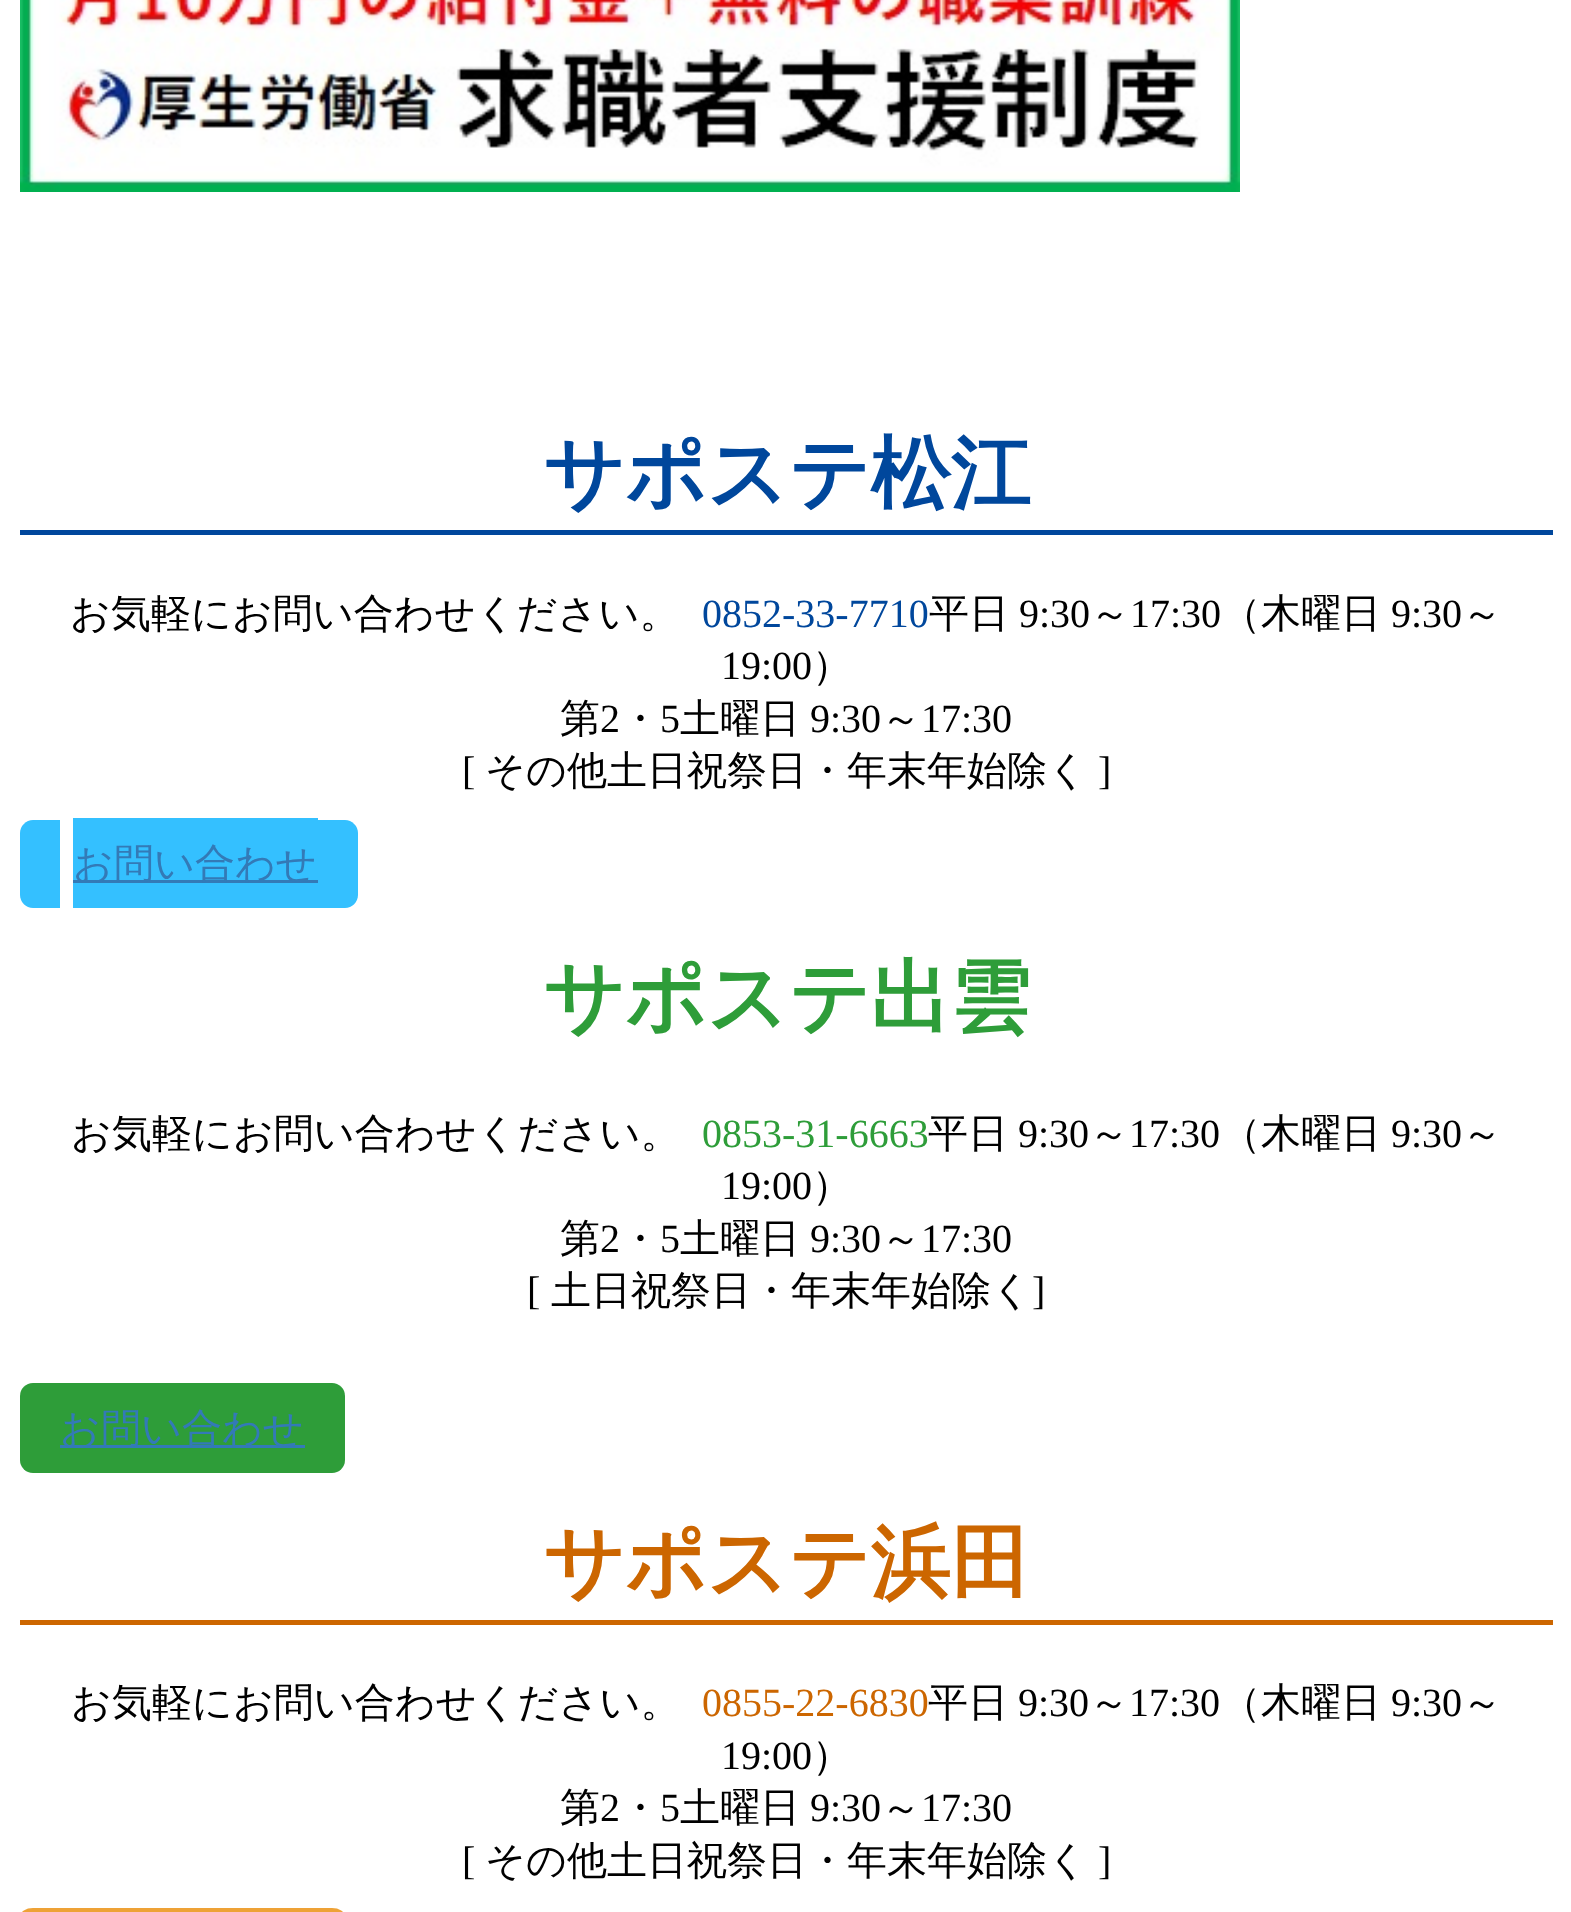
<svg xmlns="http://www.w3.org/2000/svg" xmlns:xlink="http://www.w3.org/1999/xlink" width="1571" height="1912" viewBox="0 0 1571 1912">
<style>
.cls-1{font:bold 80px WenQuanYi Zen Hei;fill:#00479c}
.cls-2{font:500 40px WenQuanYi Zen Hei;fill:#000000}
.cls-3{font:40px Liberation Serif;fill:#00479c}
.cls-4{font:40px Liberation Serif;fill:#000000}
.cls-5{font:500 40px WenQuanYi Zen Hei;fill:#337ab7}
.cls-6{font:bold 80px WenQuanYi Zen Hei;fill:#2e9d39}
.cls-7{font:40px Liberation Serif;fill:#2e9d39}
.cls-8{font:bold 80px WenQuanYi Zen Hei;fill:#cc6600}
.cls-9{font:40px Liberation Serif;fill:#cc6600}
</style>
<rect width="100%" height="100%" fill="#ffffff"/>
<image xlink:href="image0.png" x="20" y="0" width="1220" height="192"/>
<rect fill="#00479c" x="20" y="530" width="1533" height="5"/>
<path fill="#34c0ff" d="M33 820H60V908H33C26 908 20 902 20 895V833C20 826 26 820 33 820Z"/>
<rect fill="#34c0ff" x="73" y="818" width="245" height="90"/>
<path fill="#34c0ff" d="M318 820H345C352 820 358 826 358 833V895C358 902 352 908 345 908H318Z"/>
<rect fill="#337ab7" x="73" y="880" width="245" height="3"/>
<rect fill="#2e9d39" x="20" y="1383" width="325" height="90" rx="13"/>
<rect fill="#337ab7" x="60" y="1445" width="245" height="3"/>
<rect fill="#cc6600" x="20" y="1620" width="1533" height="5"/>
<rect fill="#eea236" x="20" y="1908" width="325" height="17" rx="13"/>
<text class="cls-1" x="543" y="501">サポステ松江</text>
<text class="cls-2" x="70" y="627">お気軽にお問い合わせください。</text>
<text class="cls-3" x="702" y="627">0852-33-7710</text>
<text class="cls-2" x="929" y="627">平日</text>
<text class="cls-4" x="1019" y="627">9:30</text>
<text class="cls-2" x="1090" y="627">～</text>
<text class="cls-4" x="1130" y="627">17:30</text>
<text class="cls-2" x="1221" y="627">（木曜日</text>
<text class="cls-4" x="1391" y="627">9:30</text>
<text class="cls-2" x="1462" y="627">～</text>
<text class="cls-4" x="721" y="679">19:00</text>
<text class="cls-2" x="812" y="679">）</text>
<text class="cls-2" x="560" y="732">第</text>
<text class="cls-4" x="600" y="732">2</text>
<text class="cls-2" x="620" y="732">・</text>
<text class="cls-4" x="660" y="732">5</text>
<text class="cls-2" x="680" y="732">土曜日</text>
<text class="cls-4" x="810" y="732">9:30</text>
<text class="cls-2" x="881" y="732">～</text>
<text class="cls-4" x="921" y="732">17:30</text>
<text class="cls-4" x="462" y="784">[</text>
<text class="cls-2" x="485" y="784">その他土日祝祭日・年末年始除く</text>
<text class="cls-4" x="1098" y="784">]</text>
<text class="cls-5" x="73" y="877">お問い合わせ</text>
<text class="cls-6" x="543" y="1025">サポステ出雲</text>
<text class="cls-2" x="71" y="1147">お気軽にお問い合わせください。</text>
<text class="cls-7" x="702" y="1147">0853-31-6663</text>
<text class="cls-2" x="928" y="1147">平日</text>
<text class="cls-4" x="1018" y="1147">9:30</text>
<text class="cls-2" x="1089" y="1147">～</text>
<text class="cls-4" x="1129" y="1147">17:30</text>
<text class="cls-2" x="1221" y="1147">（木曜日</text>
<text class="cls-4" x="1391" y="1147">9:30</text>
<text class="cls-2" x="1462" y="1147">～</text>
<text class="cls-4" x="721" y="1199">19:00</text>
<text class="cls-2" x="812" y="1199">）</text>
<text class="cls-2" x="560" y="1252">第</text>
<text class="cls-4" x="600" y="1252">2</text>
<text class="cls-2" x="620" y="1252">・</text>
<text class="cls-4" x="660" y="1252">5</text>
<text class="cls-2" x="680" y="1252">土曜日</text>
<text class="cls-4" x="810" y="1252">9:30</text>
<text class="cls-2" x="881" y="1252">～</text>
<text class="cls-4" x="921" y="1252">17:30</text>
<text class="cls-4" x="527" y="1304">[</text>
<text class="cls-2" x="551" y="1304">土日祝祭日・年末年始除く</text>
<text class="cls-4" x="1032" y="1304">]</text>
<text class="cls-5" x="60" y="1442">お問い合わせ</text>
<text class="cls-8" x="543" y="1590">サポステ浜田</text>
<text class="cls-2" x="71" y="1716">お気軽にお問い合わせください。</text>
<text class="cls-9" x="702" y="1716">0855-22-6830</text>
<text class="cls-2" x="928" y="1716">平日</text>
<text class="cls-4" x="1018" y="1716">9:30</text>
<text class="cls-2" x="1089" y="1716">～</text>
<text class="cls-4" x="1129" y="1716">17:30</text>
<text class="cls-2" x="1221" y="1716">（木曜日</text>
<text class="cls-4" x="1391" y="1716">9:30</text>
<text class="cls-2" x="1462" y="1716">～</text>
<text class="cls-4" x="721" y="1769">19:00</text>
<text class="cls-2" x="812" y="1769">）</text>
<text class="cls-2" x="560" y="1821">第</text>
<text class="cls-4" x="600" y="1821">2</text>
<text class="cls-2" x="620" y="1821">・</text>
<text class="cls-4" x="660" y="1821">5</text>
<text class="cls-2" x="680" y="1821">土曜日</text>
<text class="cls-4" x="810" y="1821">9:30</text>
<text class="cls-2" x="881" y="1821">～</text>
<text class="cls-4" x="921" y="1821">17:30</text>
<text class="cls-4" x="462" y="1874">[</text>
<text class="cls-2" x="485" y="1874">その他土日祝祭日・年末年始除く</text>
<text class="cls-4" x="1098" y="1874">]</text>
</svg>
